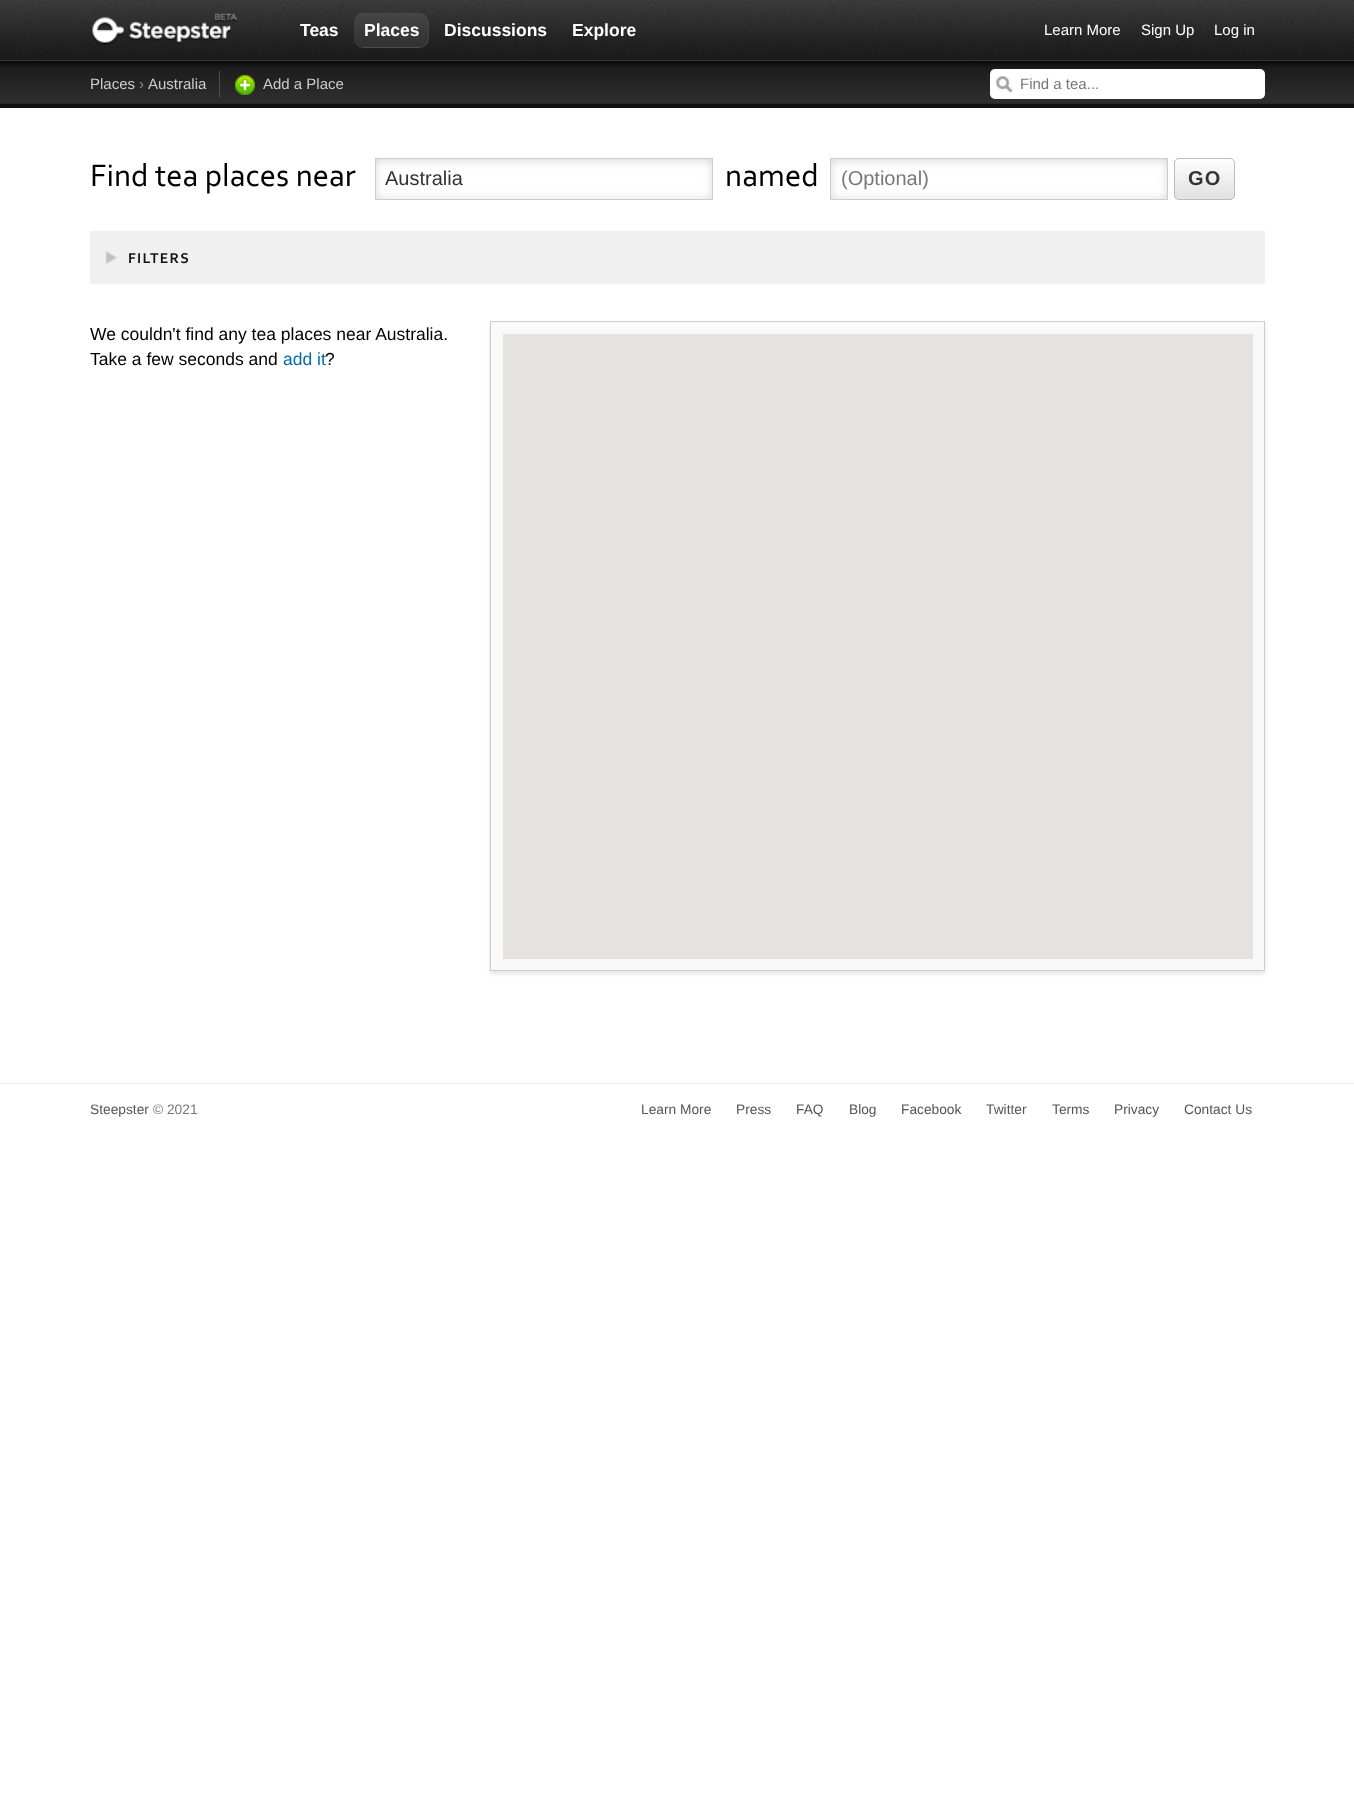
<svg xmlns="http://www.w3.org/2000/svg" xmlns:xlink="http://www.w3.org/1999/xlink" width="1354" height="1818" viewBox="0 0 1354 1818">
<style>
.cls-1{font:bold 17.5px Liberation Sans;fill:#ffffff}
.cls-2{font:15px Liberation Sans;fill:#ffffff}
.cls-3{font:15px Liberation Sans;fill:#cccccc}
.cls-4{font:15px Liberation Sans;fill:#888888}
.cls-5{font:15px Liberation Sans;fill:#777777}
.cls-6{font:32.5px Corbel;fill:#000000}
.cls-7{font:20px Liberation Sans;fill:#333333}
.cls-8{font:20px Liberation Sans;fill:#777777}
.cls-9{font:bold 20px Liberation Sans;letter-spacing:1.25px;fill:#333333}
.cls-10{font:bold 15px Corbel;letter-spacing:1.25px;fill:#111111}
.cls-11{font:17.5px Liberation Sans;fill:#000000}
.cls-12{font:17.5px Liberation Sans;fill:#006ea8}
.cls-13{font:13.75px Liberation Sans;fill:#555555}
.cls-14{font:13.75px Liberation Sans;fill:#777777}
</style>
<defs>
<clipPath id="clip1"><rect x="1174" y="158" width="61" height="42" rx="5"/></clipPath>
<linearGradient id="g1" gradientUnits="userSpaceOnUse" x1="1175" y1="159" x2="1175" y2="199"><stop offset="0" stop-color="#ffffff"/><stop offset="0.9" stop-color="#e3e3e3"/></linearGradient>
</defs>
<rect width="100%" height="100%" fill="#ffffff"/>
<image xlink:href="image0.png" x="0" y="0" width="1354" height="60"/>
<image xlink:href="image1.png" x="91" y="13" width="147" height="32"/>
<rect fill="#555555" x="354" y="13" width="75" height="35" rx="10"/>
<image xlink:href="image2.png" x="354" y="12" width="75" height="36"/>
<rect fill="#111111" x="0" y="61" width="1354" height="47"/>
<image xlink:href="image3.png" x="0" y="61" width="1354" height="43"/>
<rect fill="#333333" x="0" y="60" width="1354" height="1"/>
<image xlink:href="image4.png" x="235" y="75" width="20" height="20"/>
<rect fill="#4c4c4c" x="219" y="71" width="1" height="27"/>
<rect fill="#ffffff" x="990" y="69" width="275" height="30" rx="5"/>
<image xlink:href="image5.png" x="996" y="76" width="17" height="17"/>
<image xlink:href="image6.png" x="376" y="159" width="336" height="40"/>
<rect fill="none" stroke="#cccccc" x="375.5" y="158.5" width="337" height="41"/>
<image xlink:href="image7.png" x="831" y="159" width="336" height="40"/>
<rect fill="none" stroke="#cccccc" x="830.5" y="158.5" width="337" height="41"/>
<g clip-path="url(#clip1)">
<rect fill="url(#g1)" x="1174" y="159" width="61" height="40"/>
</g>
<rect fill="none" stroke="#bbbbbb" x="1174.5" y="158.5" width="60" height="41" rx="4.5"/>
<rect fill="#f0f0f0" x="90" y="231" width="1175" height="53"/>
<image xlink:href="image8.png" x="105" y="251" width="12" height="13"/>
<rect fill="#000000" fill-opacity="0.1" filter="blur(2px)" x="490" y="324" width="775" height="650"/>
<rect fill="#f9f9f9" x="491" y="323" width="773" height="647"/>
<rect fill="none" stroke="#cccccc" x="490.5" y="321.5" width="774" height="649"/>
<rect fill="#e5e3df" x="503" y="334" width="750" height="625"/>
<rect fill="#eeeeee" x="0" y="1083" width="1354" height="1"/>
<text class="cls-1" x="300" y="36">Teas</text>
<text class="cls-1" x="364" y="36">Places</text>
<text class="cls-1" x="444" y="36">Discussions</text>
<text class="cls-1" x="572" y="36">Explore</text>
<text class="cls-2" x="1044" y="35">Learn More</text>
<text class="cls-2" x="1141" y="35">Sign Up</text>
<text class="cls-2" x="1214" y="35">Log in</text>
<text class="cls-3" x="90" y="89">Places</text>
<text class="cls-4" x="139" y="89">›</text>
<text class="cls-3" x="148" y="89">Australia</text>
<text class="cls-3" x="263" y="89">Add a Place</text>
<text class="cls-5" x="1020" y="89">Find a tea...</text>
<text class="cls-6" x="90" y="186">Find tea places near</text>
<text class="cls-7" x="385" y="185">Australia</text>
<text class="cls-6" x="725" y="186">named</text>
<text class="cls-8" x="841" y="185">(Optional)</text>
<text class="cls-9" x="1188" y="185">GO</text>
<text class="cls-10" x="128" y="263">FILTERS</text>
<text class="cls-11"><tspan x="90" y="340">We couldn't find any tea places near Australia.</tspan><tspan x="90" y="365">Take a few seconds and</tspan></text>
<text class="cls-12" x="283" y="365">add it</text>
<text class="cls-11" x="325" y="365">?</text>
<text class="cls-13" x="90" y="1114">Steepster</text>
<text class="cls-14" x="153" y="1114">© 2021</text>
<text class="cls-13" x="641" y="1114">Learn More</text>
<text class="cls-13" x="736" y="1114">Press</text>
<text class="cls-13" x="796" y="1114">FAQ</text>
<text class="cls-13" x="849" y="1114">Blog</text>
<text class="cls-13" x="901" y="1114">Facebook</text>
<text class="cls-13" x="986" y="1114">Twitter</text>
<text class="cls-13" x="1052" y="1114">Terms</text>
<text class="cls-13" x="1114" y="1114">Privacy</text>
<text class="cls-13" x="1184" y="1114">Contact Us</text>
</svg>
